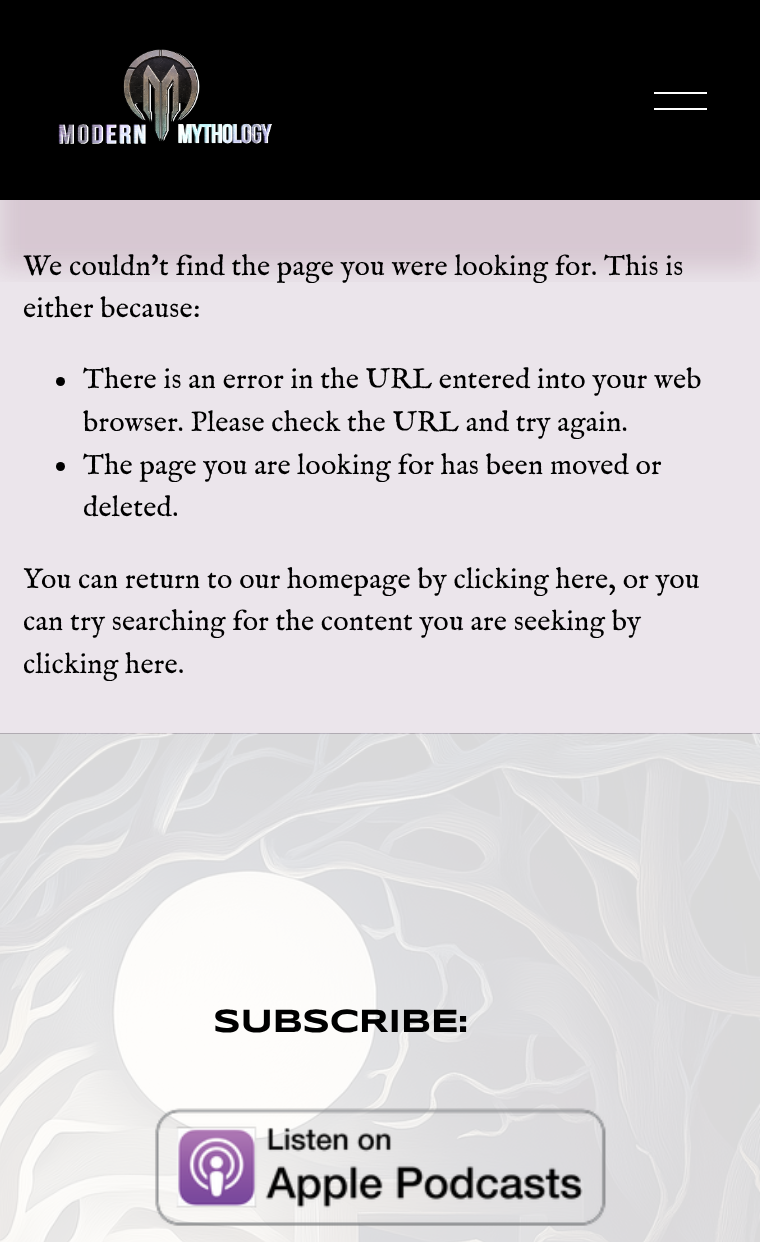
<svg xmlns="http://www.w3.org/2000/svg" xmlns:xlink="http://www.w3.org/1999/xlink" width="760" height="1242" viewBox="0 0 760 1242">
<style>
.cls-1{font:28.5px IM FELL English;letter-spacing:0.28px;fill:#000000}
.cls-2{font:bold 33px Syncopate;letter-spacing:-0.75px;fill:#000000}
</style>
<defs>
<clipPath id="clip1"><rect x="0" y="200" width="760" height="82"/></clipPath>
</defs>
<rect width="100%" height="100%" fill="#ebe5eb"/>
<rect fill="#000000" x="6" y="6" width="749" height="188"/>
<g clip-path="url(#clip1)">
<rect fill="#652144" fill-opacity="0.15" filter="blur(12px)" x="0" y="69" width="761" height="200"/>
</g>
<rect fill="none" stroke="#000000" stroke-width="6" x="3" y="3" width="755" height="194"/>
<image xlink:href="image0.png" x="58" y="49" width="214" height="95"/>
<rect fill="#ffffff" x="654" y="92" width="53" height="2"/>
<rect fill="#ffffff" x="654" y="108" width="53" height="2"/>
<circle fill="#000000" cx="60.5" cy="381.5" r="4.5"/>
<circle fill="#000000" cx="60.5" cy="466.5" r="4.5"/>
<image xlink:href="image1.png" x="0" y="733" width="760" height="509"/>
<image xlink:href="image2.png" x="155" y="1108" width="451" height="118"/>
<text class="cls-1"><tspan x="23" y="275">We couldn't find the page you were looking for. This is</tspan><tspan x="23" y="317">either because:</tspan></text>
<text class="cls-1"><tspan x="83" y="388">There is an error in the URL entered into your web</tspan><tspan x="83" y="431">browser. Please check the URL and try again.</tspan><tspan x="83" y="474">The page you are looking for has been moved or</tspan><tspan x="83" y="516">deleted.</tspan></text>
<text class="cls-1"><tspan x="23" y="588">You can return to our homepage by clicking here, or you</tspan><tspan x="23" y="630">can try searching for the content you are seeking by</tspan><tspan x="23" y="673">clicking here.</tspan></text>
<text class="cls-2" x="213" y="1032">SUBSCRIBE:</text>
</svg>
